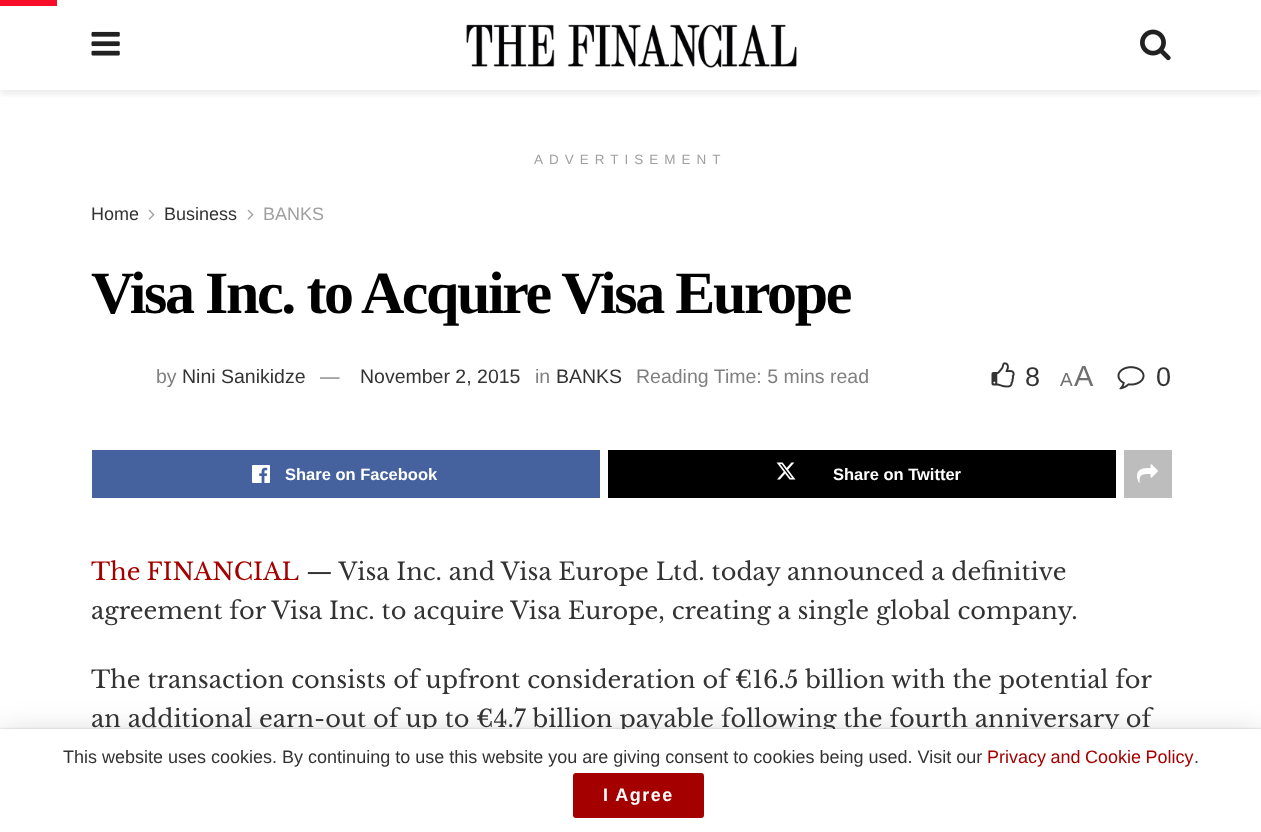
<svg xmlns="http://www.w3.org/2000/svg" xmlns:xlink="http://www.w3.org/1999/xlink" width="1261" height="832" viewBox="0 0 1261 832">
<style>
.cls-1{font:13.5px Liberation Sans;letter-spacing:6px;fill:#a0a0a0}
.cls-2{font:18px Liberation Sans;fill:#333333}
.cls-3{font:18px Liberation Sans;fill:#a0a0a0}
.cls-4{font:bold 60px Liberation Serif;letter-spacing:-2.4px;fill:#000000}
.cls-5{font:19.5px Liberation Sans;fill:#808080}
.cls-6{font:19.5px Liberation Sans;fill:#333333}
.cls-7{font:27px Liberation Sans;fill:#333333}
.cls-8{font:19px Liberation Sans;fill:#707070}
.cls-9{font:29px Liberation Sans;fill:#707070}
.cls-10{font:bold 16.5px Liberation Sans;fill:#ffffff}
.cls-11{font:24px Libre Baskerville;fill:#a50000}
.cls-12{font:24px Libre Baskerville;fill:#333333}
.cls-13{font:18px Liberation Sans;fill:#a50000}
.cls-14{font:bold 18px Liberation Sans;letter-spacing:1.5px;fill:#ffffff}
</style>
<defs>
<clipPath id="clip1"><rect x="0" y="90" width="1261" height="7"/></clipPath>
</defs>
<rect width="100%" height="100%" fill="#ffffff"/>
<g clip-path="url(#clip1)">
<rect fill="#000000" fill-opacity="0.1" filter="blur(4.5px)" x="0" y="3" width="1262" height="90"/>
</g>
<rect fill="#f70d28" x="0" y="0" width="57" height="6"/>
<image xlink:href="image0.png" x="91" y="31" width="29" height="25"/>
<image xlink:href="image1.png" x="466" y="24" width="331" height="44"/>
<image xlink:href="image2.png" x="1140" y="29" width="31" height="32"/>
<image xlink:href="image3.png" x="148" y="209" width="7" height="11"/>
<image xlink:href="image3.png" x="247" y="209" width="7" height="11"/>
<image xlink:href="image4.png" x="991" y="362" width="24" height="26"/>
<image xlink:href="image5.png" x="1117" y="366" width="28" height="24"/>
<rect fill="#45629f" x="92" y="450" width="508" height="48"/>
<image xlink:href="image6.png" x="252" y="465" width="18" height="18"/>
<rect fill="#000000" x="608" y="450" width="508" height="48"/>
<image xlink:href="image7.png" x="776" y="462" width="20" height="18"/>
<rect fill="#bdbdbd" x="1124" y="450" width="48" height="48"/>
<image xlink:href="image8.png" x="1137" y="464" width="21" height="19"/>
<rect fill="#000000" fill-opacity="0.15" filter="blur(15px)" x="0" y="732" width="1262" height="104"/>
<rect fill="#000000" fill-opacity="0.2" filter="blur(1px)" x="0" y="729" width="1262" height="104"/>
<text class="cls-1" x="534" y="164">ADVERTISEMENT</text>
<text class="cls-2" x="91" y="220">Home</text>
<text class="cls-2" x="164" y="220">Business</text>
<text class="cls-3" x="263" y="220">BANKS</text>
<text class="cls-4" x="91" y="313">Visa Inc. to Acquire Visa Europe</text>
<text class="cls-5" x="156" y="383">by</text>
<text class="cls-6" x="182" y="383">Nini Sanikidze</text>
<text class="cls-5" x="320" y="383">—</text>
<text class="cls-6" x="360" y="383">November 2, 2015</text>
<text class="cls-5" x="535" y="383">in</text>
<text class="cls-6" x="556" y="383">BANKS</text>
<text class="cls-5" x="636" y="383">Reading Time: 5 mins read</text>
<text class="cls-7" x="1025" y="386">8</text>
<text class="cls-8" x="1060" y="386">A</text>
<text class="cls-9" x="1074" y="386">A</text>
<text class="cls-7" x="1156" y="386">0</text>
<text class="cls-10" x="285" y="480">Share on Facebook</text>
<text class="cls-10" x="833" y="480">Share on Twitter</text>
<text class="cls-11" x="91" y="580" word-spacing="-1">The FINANCIAL</text>
<text class="cls-12" x="306" y="580">— Visa Inc. and Visa Europe Ltd. today announced a definitive</text>
<text class="cls-12" x="91" y="619">agreement for Visa Inc. to acquire Visa Europe, creating a single global company.</text>
<text class="cls-12"><tspan x="91" y="688">The transaction consists of upfront consideration of €16.5 billion with the potential for</tspan><tspan x="91" y="727">an additional earn-out of up to €4.7 billion payable following the fourth anniversary of</tspan></text>
<rect fill="#ffffff" x="0" y="729" width="1261" height="103"/>
<text class="cls-2" x="63" y="763">This website uses cookies. By continuing to use this website you are giving consent to cookies being used. Visit our</text>
<text class="cls-13" x="987" y="763" word-spacing="-0.5">Privacy and Cookie Policy</text>
<text class="cls-2" x="1194" y="763">.</text>
<rect fill="#a50000" x="573" y="773" width="131" height="45" rx="3"/>
<text class="cls-14" x="603" y="801">I Agree</text>
</svg>
